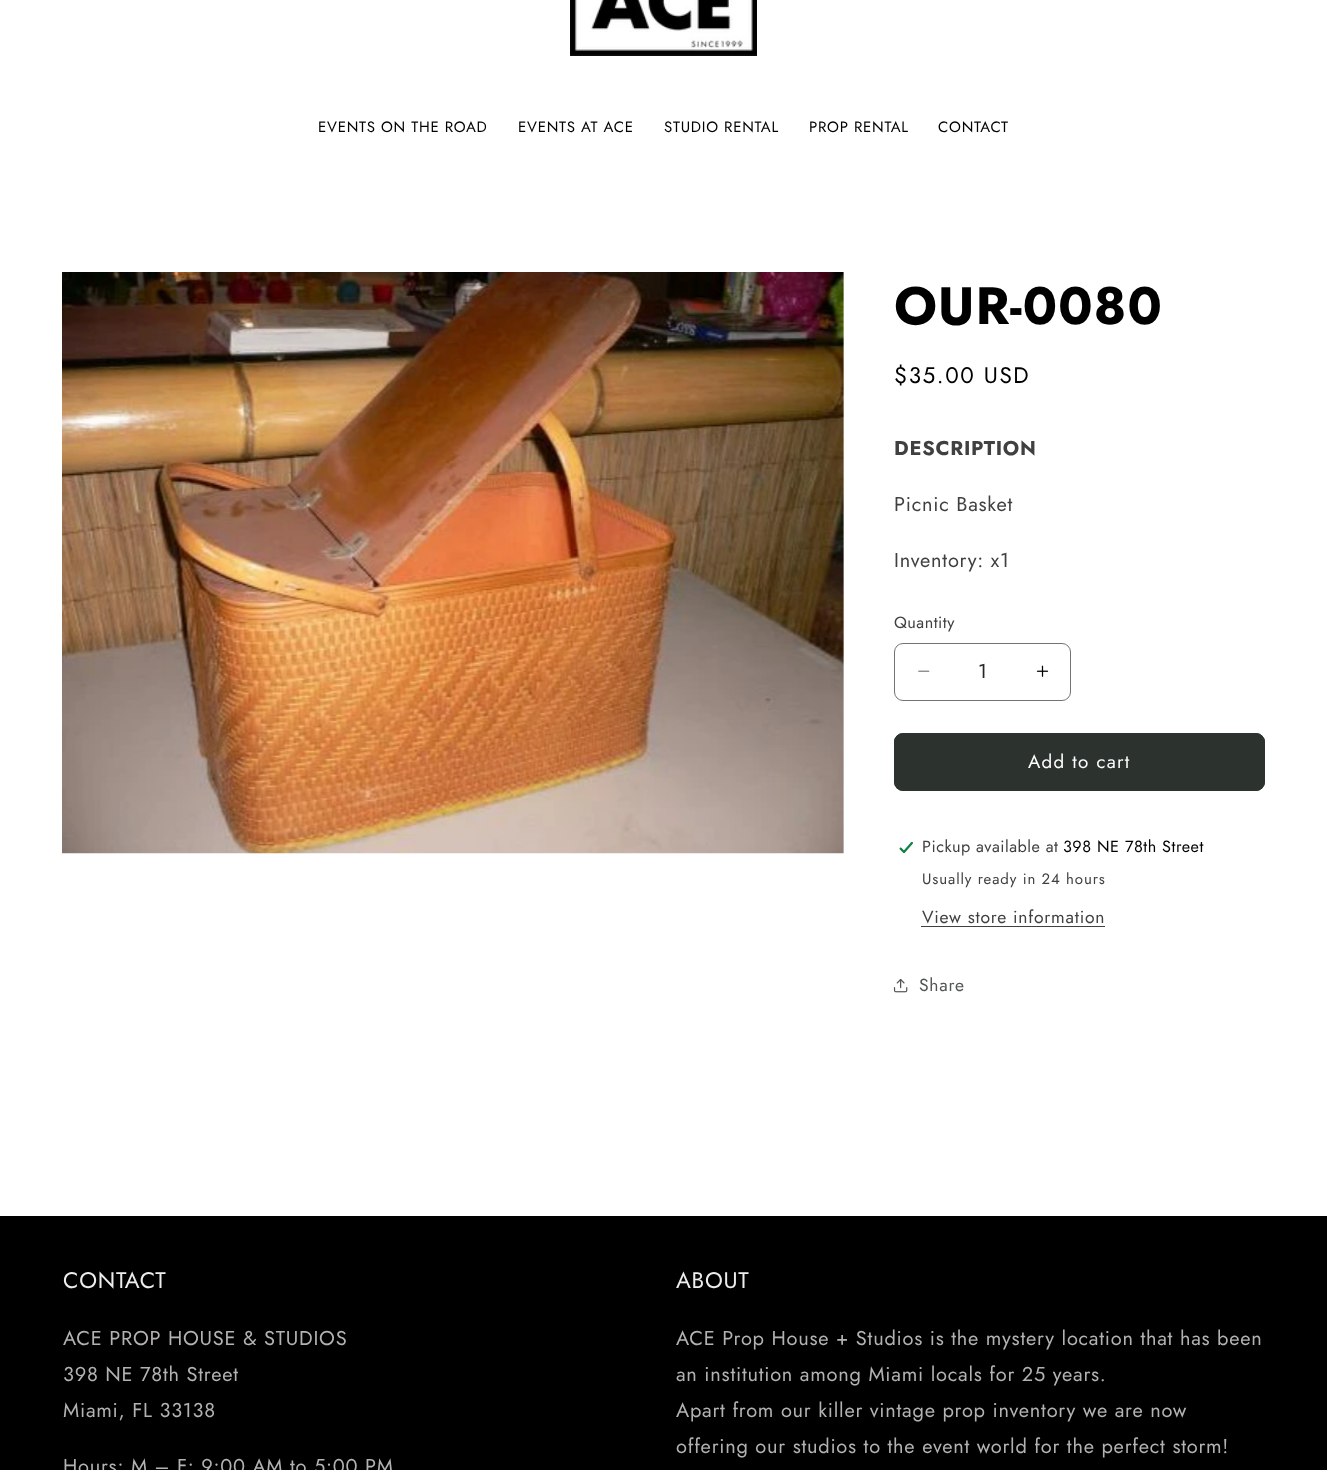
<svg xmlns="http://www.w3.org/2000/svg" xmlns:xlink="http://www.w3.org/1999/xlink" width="1327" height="1470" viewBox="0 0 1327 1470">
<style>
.cls-1{font:15px Jost;letter-spacing:0.75px;fill:#000000}
.cls-2{font:bold 52.5px Jost;letter-spacing:0.75px;fill:#000000}
.cls-3{font:22.5px Jost;letter-spacing:1.6px;fill:#000000}
.cls-4{font:bold 20px Jost;letter-spacing:0.75px;fill:#404040}
.cls-5{font:20px Jost;letter-spacing:0.75px;fill:#404040}
.cls-6{font:16.25px Jost;letter-spacing:0.5px;fill:#404040}
.cls-7{font:20px Jost;fill:#262626}
.cls-8{font:18.75px Jost;letter-spacing:1.25px;fill:#ffffff}
.cls-9{font:16.25px Jost;letter-spacing:0.5px;fill:#000000}
.cls-10{font:15px Jost;letter-spacing:0.9px;fill:#404040}
.cls-11{font:17.5px Jost;letter-spacing:0.75px;fill:#404040}
.cls-12{font:17.5px Jost;letter-spacing:0.75px;fill:#505655}
.cls-13{font:22.5px Jost;letter-spacing:0.75px;fill:#efecec}
.cls-14{font:20px Jost;letter-spacing:0.75px;fill:#b3b1b1}
</style>
<rect width="100%" height="100%" fill="#ffffff"/>
<image xlink:href="image0.png" x="570" y="0" width="187" height="56"/>
<image xlink:href="image1.png" x="62" y="272" width="782" height="582"/>
<image xlink:href="image2.png" x="918" y="670" width="12" height="2"/>
<image xlink:href="image3.png" x="1036" y="665" width="13" height="12"/>
<rect fill="none" stroke="#737373" x="894.5" y="643.5" width="176" height="57" rx="8.5"/>
<rect fill="#2c332f" x="894" y="733" width="371" height="58" rx="9"/>
<rect fill="none" stroke="#2c332f" x="894.5" y="733.5" width="370" height="57" rx="8.5"/>
<image xlink:href="image4.png" x="899" y="841" width="14" height="13"/>
<rect fill="#404040" x="921" y="926" width="184" height="1"/>
<image xlink:href="image5.png" x="893" y="978" width="15" height="15"/>
<rect fill="#000000" x="0" y="1216" width="1327" height="254"/>
<text class="cls-1" x="318" y="132">EVENTS ON THE ROAD</text>
<text class="cls-1" x="518" y="132">EVENTS AT ACE</text>
<text class="cls-1" x="664" y="132">STUDIO RENTAL</text>
<text class="cls-1" x="809" y="132">PROP RENTAL</text>
<text class="cls-1" x="938" y="132">CONTACT</text>
<text class="cls-2" x="894" y="324">OUR-0080</text>
<text class="cls-3" x="894" y="383">$35.00 USD</text>
<text class="cls-4" x="894" y="455">DESCRIPTION</text>
<text class="cls-5" x="894" y="511">Picnic Basket</text>
<text class="cls-5" x="894" y="567">Inventory: x1</text>
<text class="cls-6" x="894" y="628">Quantity</text>
<text class="cls-7" x="978" y="678">1</text>
<text class="cls-8" x="1028" y="768">Add to cart</text>
<text class="cls-6" x="922" y="852">Pickup available at</text>
<text class="cls-9" x="1063" y="852">398 NE 78th Street</text>
<text class="cls-10" x="922" y="884">Usually ready in 24 hours</text>
<text class="cls-11" x="922" y="923">View store information</text>
<text class="cls-12" x="919" y="991">Share</text>
<text class="cls-13" x="63" y="1288">CONTACT</text>
<text class="cls-14"><tspan x="63" y="1345">ACE PROP HOUSE &amp; STUDIOS</tspan><tspan x="63" y="1381">398 NE 78th Street</tspan><tspan x="63" y="1417">Miami, FL 33138</tspan></text>
<text class="cls-14" x="63" y="1473">Hours: M – F: 9:00 AM to 5:00 PM</text>
<text class="cls-13" x="676" y="1288">ABOUT</text>
<text class="cls-14"><tspan x="676" y="1345">ACE Prop House + Studios is the mystery location that has been</tspan><tspan x="676" y="1381">an institution among Miami locals for 25 years.</tspan><tspan x="676" y="1417">Apart from our killer vintage prop inventory we are now</tspan><tspan x="676" y="1453">offering our studios to the event world for the perfect storm!</tspan></text>
</svg>
